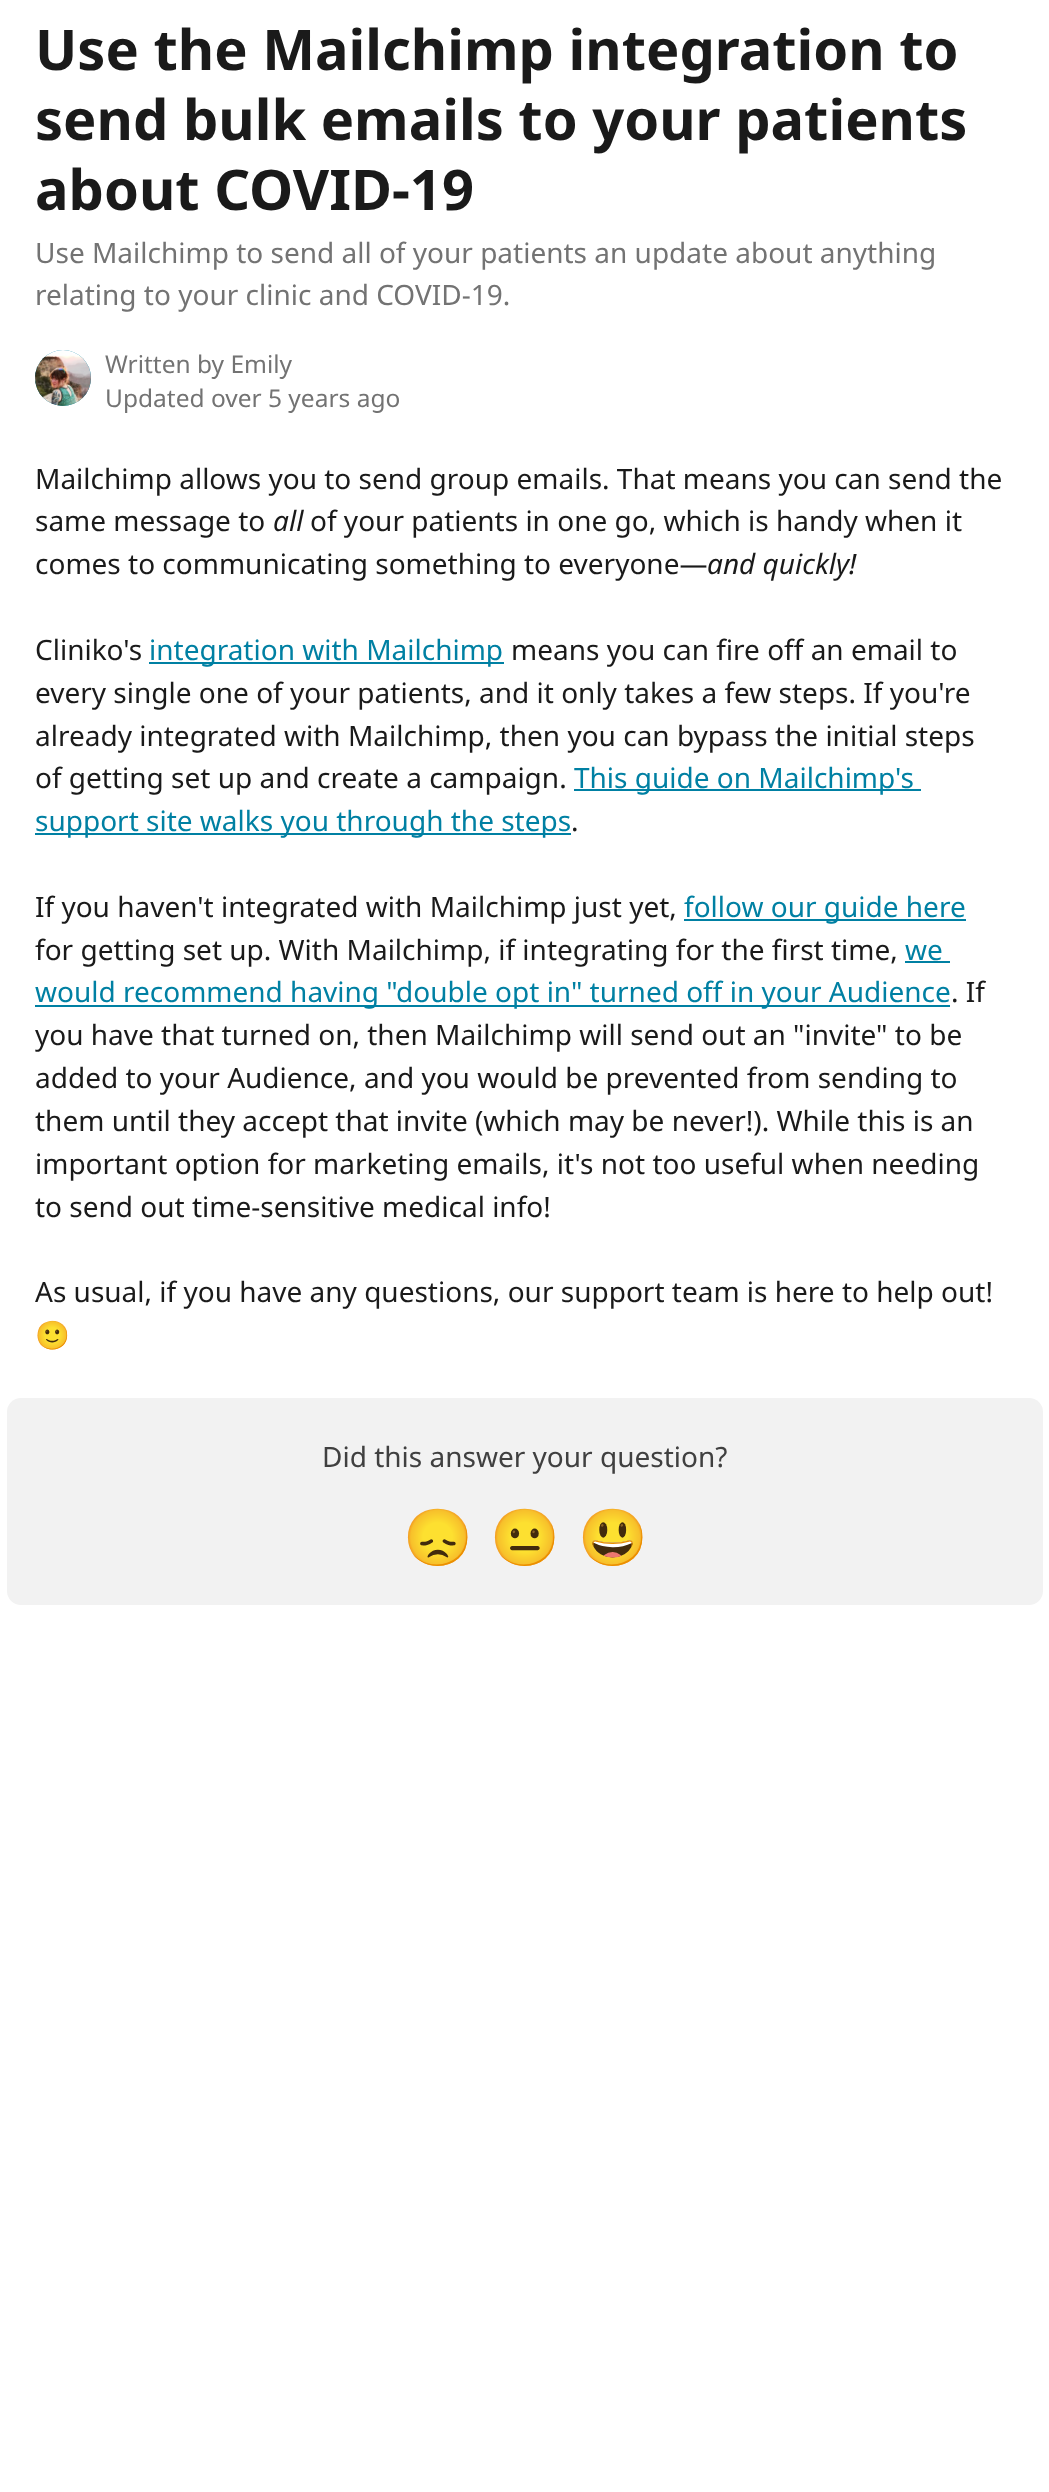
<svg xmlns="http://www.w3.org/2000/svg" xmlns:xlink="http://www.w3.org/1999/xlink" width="1049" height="2492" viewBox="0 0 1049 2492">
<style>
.cls-1{font:bold 56px Noto Sans;fill:#1a1a1a}
.cls-2{font:28px Noto Sans;fill:#737373}
.cls-3{font:24.5px Noto Sans;fill:#737373}
.cls-4{font:28px Noto Sans;fill:#1a1a1a}
.cls-5{font:italic 28px Noto Sans;fill:#1a1a1a}
.cls-6{font:28px Noto Sans;fill:#0080a3}
.cls-7{font:28px Noto Color Emoji;fill:#1a1a1a}
.cls-8{font:28px Noto Sans;fill:#404040}
.cls-9{font:56px Noto Color Emoji;fill:#404040}
</style>
<rect width="100%" height="100%" fill="#ffffff"/>
<circle fill="#0080a3" cx="63" cy="378" r="28"/>
<image xlink:href="image0.png" x="35" y="350" width="56" height="56"/>
<rect fill="#0080a3" x="149" y="662" width="355" height="2"/>
<rect fill="#0080a3" x="574" y="789" width="347" height="2"/>
<rect fill="#0080a3" x="35" y="833" width="536" height="2"/>
<rect fill="#0080a3" x="684" y="919" width="282" height="2"/>
<rect fill="#0080a3" x="905" y="961" width="45" height="2"/>
<rect fill="#0080a3" x="35" y="1005" width="915" height="2"/>
<rect fill="#f2f2f2" x="7" y="1398" width="1036" height="207" rx="14"/>
<text class="cls-1"><tspan x="35" y="70">Use the Mailchimp integration to</tspan><tspan x="35" y="140">send bulk emails to your patients</tspan><tspan x="35" y="210">about COVID-19</tspan></text>
<text class="cls-2"><tspan x="35" y="263">Use Mailchimp to send all of your patients an update about anything</tspan><tspan x="35" y="305">relating to your clinic and COVID-19.</tspan></text>
<text class="cls-3"><tspan x="105" y="373">Written by Emily</tspan><tspan x="105" y="407">Updated over 5 years ago</tspan></text>
<text class="cls-4"><tspan x="35" y="489">Mailchimp allows you to send group emails. That means you can send the</tspan><tspan x="35" y="531">same message to</tspan></text>
<text class="cls-5" x="273" y="531">all</text>
<text class="cls-4" x="310" y="531">of your patients in one go, which is handy when it</text>
<text class="cls-4" x="35" y="574">comes to communicating something to everyone—</text>
<text class="cls-5" x="707" y="574">and quickly!</text>
<text class="cls-4" x="35" y="660">Cliniko's</text>
<text class="cls-6" x="149" y="660">integration with Mailchimp</text>
<text class="cls-4" x="511" y="660">means you can fire off an email to</text>
<text class="cls-4"><tspan x="35" y="703">every single one of your patients, and it only takes a few steps. If you're</tspan><tspan x="35" y="746">already integrated with Mailchimp, then you can bypass the initial steps</tspan><tspan x="35" y="788">of getting set up and create a campaign.</tspan></text>
<text class="cls-6" x="574" y="788">This guide on Mailchimp's</text>
<text class="cls-6" x="35" y="831">support site walks you through the steps</text>
<text class="cls-4" x="571" y="831">.</text>
<text class="cls-4" x="35" y="917">If you haven't integrated with Mailchimp just yet,</text>
<text class="cls-6" x="684" y="917">follow our guide here</text>
<text class="cls-4" x="35" y="960">for getting set up. With Mailchimp, if integrating for the first time,</text>
<text class="cls-6" x="905" y="960">we</text>
<text class="cls-6" x="35" y="1002">would recommend having "double opt in" turned off in your Audience</text>
<text class="cls-4" x="951" y="1002">. If</text>
<text class="cls-4"><tspan x="35" y="1045">you have that turned on, then Mailchimp will send out an "invite" to be</tspan><tspan x="35" y="1088">added to your Audience, and you would be prevented from sending to</tspan><tspan x="35" y="1131">them until they accept that invite (which may be never!). While this is an</tspan><tspan x="35" y="1174">important option for marketing emails, it's not too useful when needing</tspan><tspan x="35" y="1217">to send out time-sensitive medical info!</tspan></text>
<text class="cls-4" x="35" y="1302">As usual, if you have any questions, our support team is here to help out!</text>
<text class="cls-7" x="35" y="1345">🙂</text>
<text class="cls-8" x="322" y="1467">Did this answer your question?</text>
<text class="cls-9" x="403" y="1557">😞</text>
<text class="cls-9" x="490" y="1557">😐</text>
<text class="cls-9" x="578" y="1557">😃</text>
</svg>
